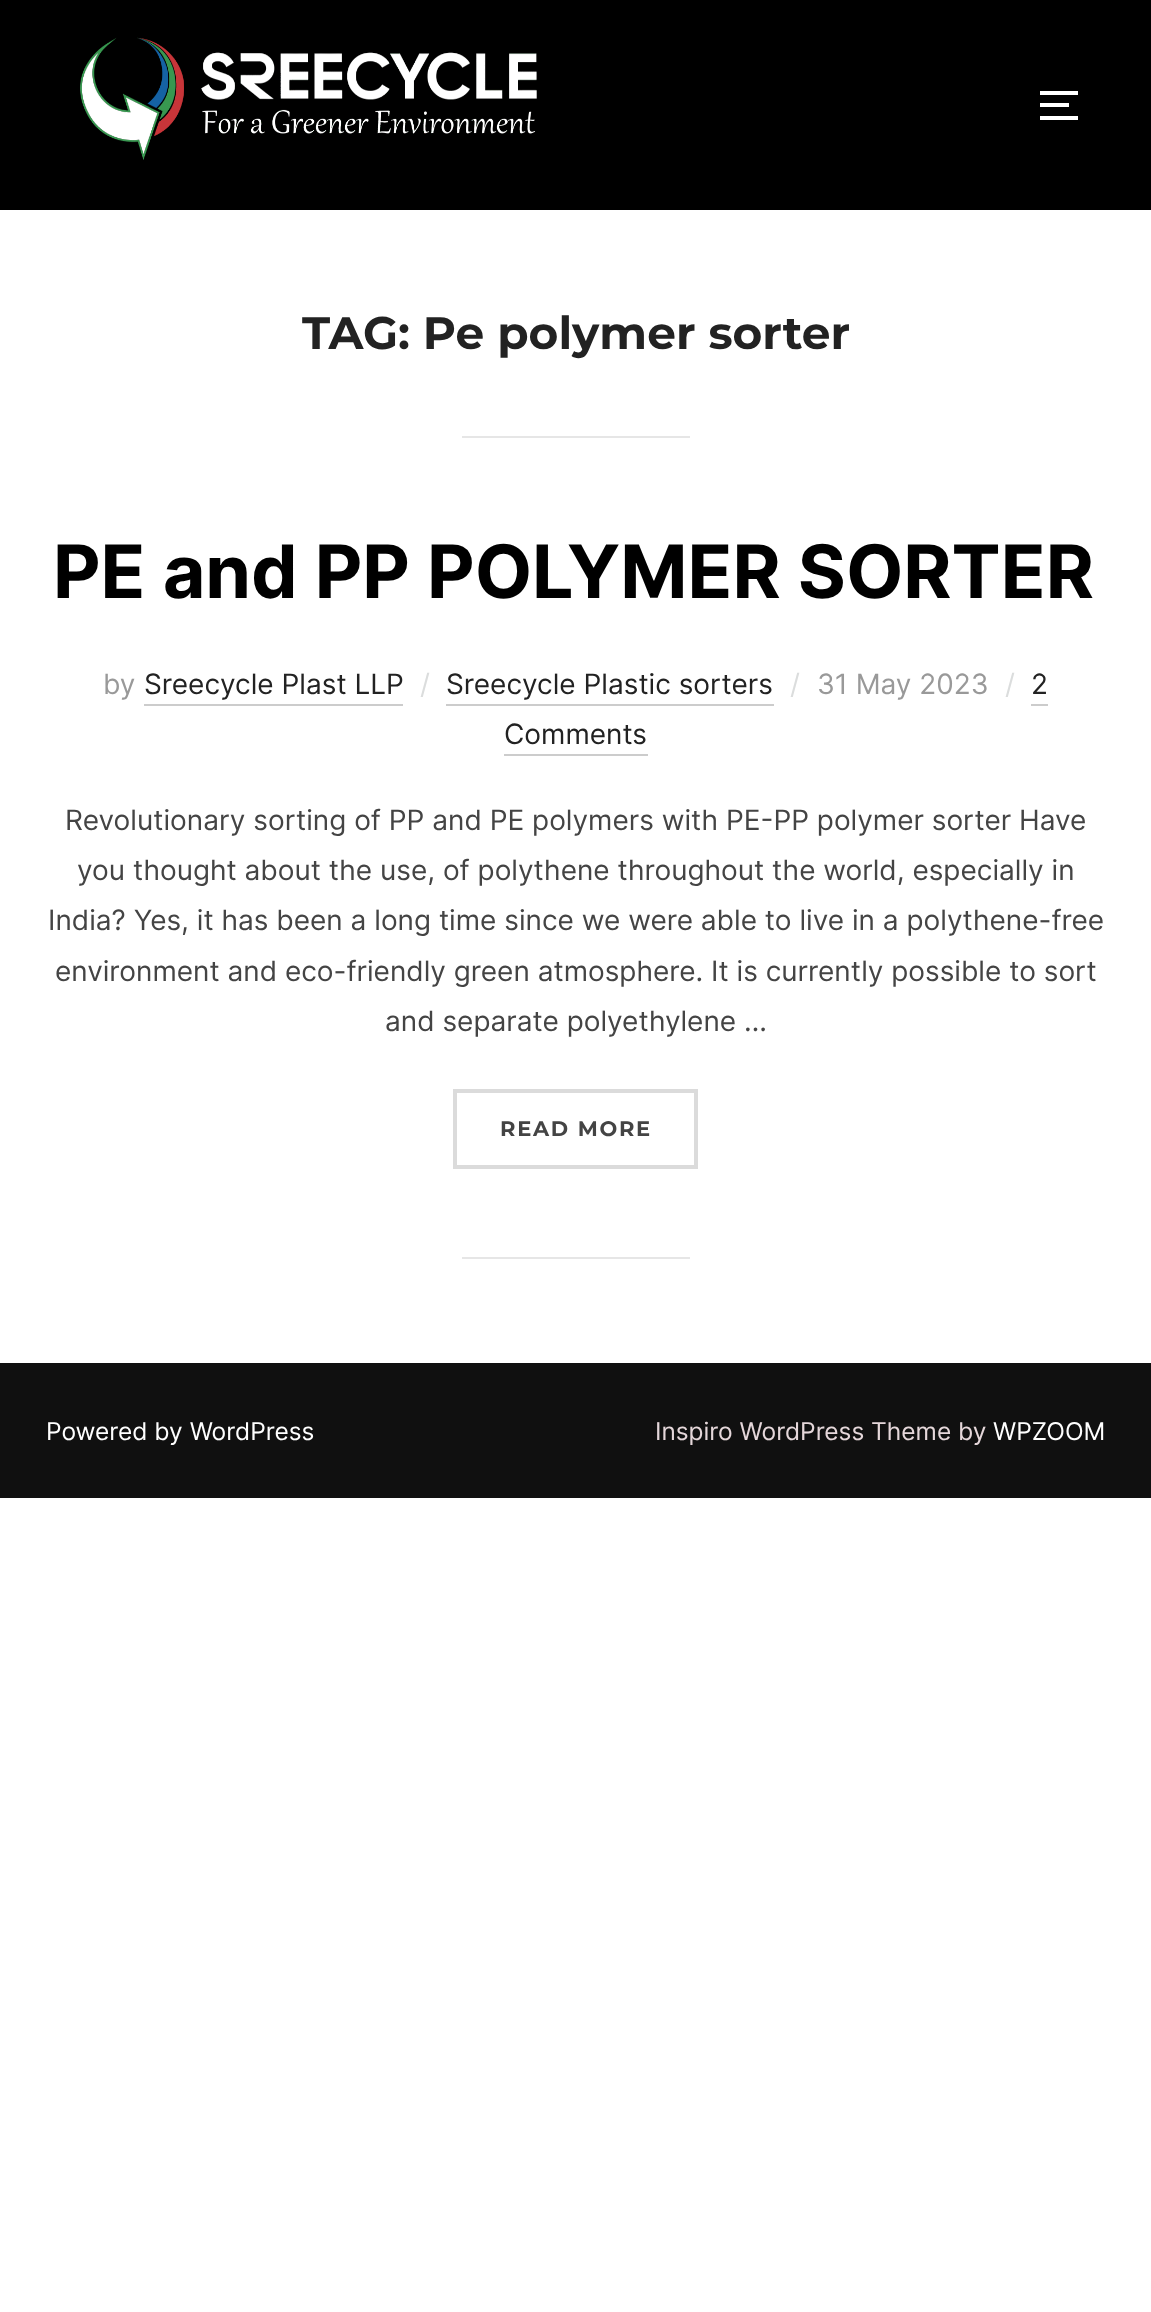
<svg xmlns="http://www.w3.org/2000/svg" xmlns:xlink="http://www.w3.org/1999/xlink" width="1151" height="2312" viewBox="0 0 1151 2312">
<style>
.cls-1{font:bold 45.5px Montserrat;fill:#222222}
.cls-2{font:bold 73.5px Inter;fill:#000000}
.cls-3{font:28px Inter;fill:#999999}
.cls-4{font:28px Inter;fill:#222222}
.cls-5{font:28px Inter;fill:#dbdddd}
.cls-6{font:28px Inter;fill:#444444}
.cls-7{font:bold 21px Montserrat;letter-spacing:1.75px;fill:#444444}
.cls-8{font:24.5px Inter;fill:#ffffff}
.cls-9{font:24.5px Inter;fill:#e5d7da}
</style>
<rect width="100%" height="100%" fill="#ffffff"/>
<rect fill="#000000" x="0" y="0" width="1151" height="210"/>
<image xlink:href="image0.png" x="80" y="37" width="457" height="123"/>
<rect fill="#ffffff" x="1040" y="91" width="38" height="4"/>
<rect fill="#ffffff" x="1040" y="103" width="29" height="4"/>
<rect fill="#ffffff" x="1040" y="116" width="38" height="4"/>
<rect fill="#e6e6e6" x="462" y="436" width="228" height="2"/>
<rect fill="#cccccc" x="144" y="704" width="259" height="2"/>
<rect fill="#cccccc" x="446" y="704" width="328" height="2"/>
<rect fill="#cccccc" x="1031" y="704" width="17" height="2"/>
<rect fill="#cccccc" x="504" y="754" width="144" height="2"/>
<rect fill="none" stroke="#dbdbdb" stroke-width="4" x="455" y="1091" width="241" height="76"/>
<rect fill="#e6e6e6" x="462" y="1257" width="228" height="2"/>
<rect fill="#101010" x="0" y="1363" width="1151" height="135"/>
<text class="cls-1" x="302" y="349">TAG: Pe polymer sorter</text>
<text class="cls-2" x="53" y="598">PE and PP POLYMER SORTER</text>
<text class="cls-3" x="103" y="694">by</text>
<text class="cls-4" x="144" y="694">Sreecycle Plast LLP</text>
<text class="cls-5" x="420" y="694">/</text>
<text class="cls-4" x="446" y="694">Sreecycle Plastic sorters</text>
<text class="cls-5" x="790" y="694">/</text>
<text class="cls-3" x="817" y="694">31 May 2023</text>
<text class="cls-5" x="1005" y="694">/</text>
<text class="cls-4" x="1031" y="694">2</text>
<text class="cls-4" x="504" y="744">Comments</text>
<text class="cls-6" x="65" y="830">Revolutionary sorting of PP and PE polymers with PE-PP polymer sorter Have</text>
<text class="cls-6" x="77" y="880">you thought about the use, of polythene throughout the world, especially in</text>
<text class="cls-6" x="48" y="930">India? Yes, it has been a long time since we were able to live in a polythene-free</text>
<text class="cls-6" x="55" y="981">environment and eco-friendly green atmosphere. It is currently possible to sort</text>
<text class="cls-6" x="385" y="1031">and separate polyethylene …</text>
<text class="cls-7" x="500" y="1136">READ MORE</text>
<text class="cls-8" x="46" y="1440">Powered by WordPress</text>
<text class="cls-9" x="655" y="1440">Inspiro WordPress Theme by</text>
<text class="cls-8" x="993" y="1440">WPZOOM</text>
</svg>
